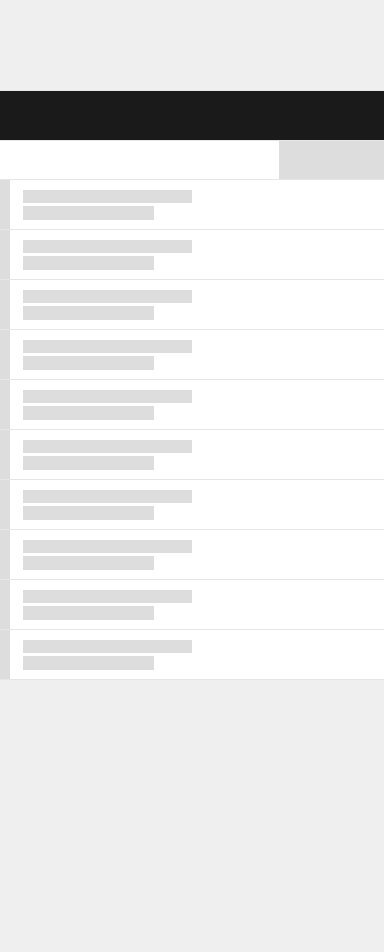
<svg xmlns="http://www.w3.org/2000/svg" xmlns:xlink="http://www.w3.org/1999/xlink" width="384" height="952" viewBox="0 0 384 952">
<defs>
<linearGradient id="g1" gradientUnits="userSpaceOnUse" x1="-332" y1="232" x2="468" y2="232"><stop offset="0.08" stop-color="#dddddd"/><stop offset="0.18" stop-color="#cccccc"/><stop offset="0.33" stop-color="#dddddd"/></linearGradient>
</defs>
<rect width="100%" height="100%" fill="#efefef"/>
<rect fill="#e6e6e6" x="0" y="90" width="384" height="1"/>
<rect fill="#1a1a1a" x="0" y="91" width="384" height="49"/>
<rect fill="#e6e6e6" x="0" y="140" width="384" height="1"/>
<rect fill="#ffffff" x="0" y="141" width="279" height="38"/>
<rect fill="#e6e6e6" x="0" y="179" width="384" height="1"/>
<rect fill="#dddddd" x="279" y="141" width="105" height="38"/>
<rect fill="url(#g1)" x="0" y="180" width="192" height="499"/>
<rect fill="#e6e6e6" x="0" y="229" width="384" height="1"/>
<rect fill="#ffffff" x="10" y="180" width="13" height="49"/>
<rect fill="#ffffff" x="23" y="180" width="361" height="10"/>
<rect fill="#ffffff" x="23" y="203" width="169" height="3"/>
<rect fill="#ffffff" x="192" y="190" width="192" height="16"/>
<rect fill="#ffffff" x="154" y="206" width="230" height="14"/>
<rect fill="#ffffff" x="23" y="220" width="361" height="9"/>
<rect fill="#e6e6e6" x="0" y="279" width="384" height="1"/>
<rect fill="#ffffff" x="10" y="230" width="13" height="49"/>
<rect fill="#ffffff" x="23" y="230" width="361" height="10"/>
<rect fill="#ffffff" x="23" y="253" width="169" height="3"/>
<rect fill="#ffffff" x="192" y="240" width="192" height="16"/>
<rect fill="#ffffff" x="154" y="256" width="230" height="14"/>
<rect fill="#ffffff" x="23" y="270" width="361" height="9"/>
<rect fill="#e6e6e6" x="0" y="329" width="384" height="1"/>
<rect fill="#ffffff" x="10" y="280" width="13" height="49"/>
<rect fill="#ffffff" x="23" y="280" width="361" height="10"/>
<rect fill="#ffffff" x="23" y="303" width="169" height="3"/>
<rect fill="#ffffff" x="192" y="290" width="192" height="16"/>
<rect fill="#ffffff" x="154" y="306" width="230" height="14"/>
<rect fill="#ffffff" x="23" y="320" width="361" height="9"/>
<rect fill="#e6e6e6" x="0" y="379" width="384" height="1"/>
<rect fill="#ffffff" x="10" y="330" width="13" height="49"/>
<rect fill="#ffffff" x="23" y="330" width="361" height="10"/>
<rect fill="#ffffff" x="23" y="353" width="169" height="3"/>
<rect fill="#ffffff" x="192" y="340" width="192" height="16"/>
<rect fill="#ffffff" x="154" y="356" width="230" height="14"/>
<rect fill="#ffffff" x="23" y="370" width="361" height="9"/>
<rect fill="#e6e6e6" x="0" y="429" width="384" height="1"/>
<rect fill="#ffffff" x="10" y="380" width="13" height="49"/>
<rect fill="#ffffff" x="23" y="380" width="361" height="10"/>
<rect fill="#ffffff" x="23" y="403" width="169" height="3"/>
<rect fill="#ffffff" x="192" y="390" width="192" height="16"/>
<rect fill="#ffffff" x="154" y="406" width="230" height="14"/>
<rect fill="#ffffff" x="23" y="420" width="361" height="9"/>
<rect fill="#e6e6e6" x="0" y="479" width="384" height="1"/>
<rect fill="#ffffff" x="10" y="430" width="13" height="49"/>
<rect fill="#ffffff" x="23" y="430" width="361" height="10"/>
<rect fill="#ffffff" x="23" y="453" width="169" height="3"/>
<rect fill="#ffffff" x="192" y="440" width="192" height="16"/>
<rect fill="#ffffff" x="154" y="456" width="230" height="14"/>
<rect fill="#ffffff" x="23" y="470" width="361" height="9"/>
<rect fill="#e6e6e6" x="0" y="529" width="384" height="1"/>
<rect fill="#ffffff" x="10" y="480" width="13" height="49"/>
<rect fill="#ffffff" x="23" y="480" width="361" height="10"/>
<rect fill="#ffffff" x="23" y="503" width="169" height="3"/>
<rect fill="#ffffff" x="192" y="490" width="192" height="16"/>
<rect fill="#ffffff" x="154" y="506" width="230" height="14"/>
<rect fill="#ffffff" x="23" y="520" width="361" height="9"/>
<rect fill="#e6e6e6" x="0" y="579" width="384" height="1"/>
<rect fill="#ffffff" x="10" y="530" width="13" height="49"/>
<rect fill="#ffffff" x="23" y="530" width="361" height="10"/>
<rect fill="#ffffff" x="23" y="553" width="169" height="3"/>
<rect fill="#ffffff" x="192" y="540" width="192" height="16"/>
<rect fill="#ffffff" x="154" y="556" width="230" height="14"/>
<rect fill="#ffffff" x="23" y="570" width="361" height="9"/>
<rect fill="#e6e6e6" x="0" y="629" width="384" height="1"/>
<rect fill="#ffffff" x="10" y="580" width="13" height="49"/>
<rect fill="#ffffff" x="23" y="580" width="361" height="10"/>
<rect fill="#ffffff" x="23" y="603" width="169" height="3"/>
<rect fill="#ffffff" x="192" y="590" width="192" height="16"/>
<rect fill="#ffffff" x="154" y="606" width="230" height="14"/>
<rect fill="#ffffff" x="23" y="620" width="361" height="9"/>
<rect fill="#e6e6e6" x="0" y="679" width="384" height="1"/>
<rect fill="#ffffff" x="10" y="630" width="13" height="49"/>
<rect fill="#ffffff" x="23" y="630" width="361" height="10"/>
<rect fill="#ffffff" x="23" y="653" width="169" height="3"/>
<rect fill="#ffffff" x="192" y="640" width="192" height="16"/>
<rect fill="#ffffff" x="154" y="656" width="230" height="14"/>
<rect fill="#ffffff" x="23" y="670" width="361" height="9"/>
</svg>
